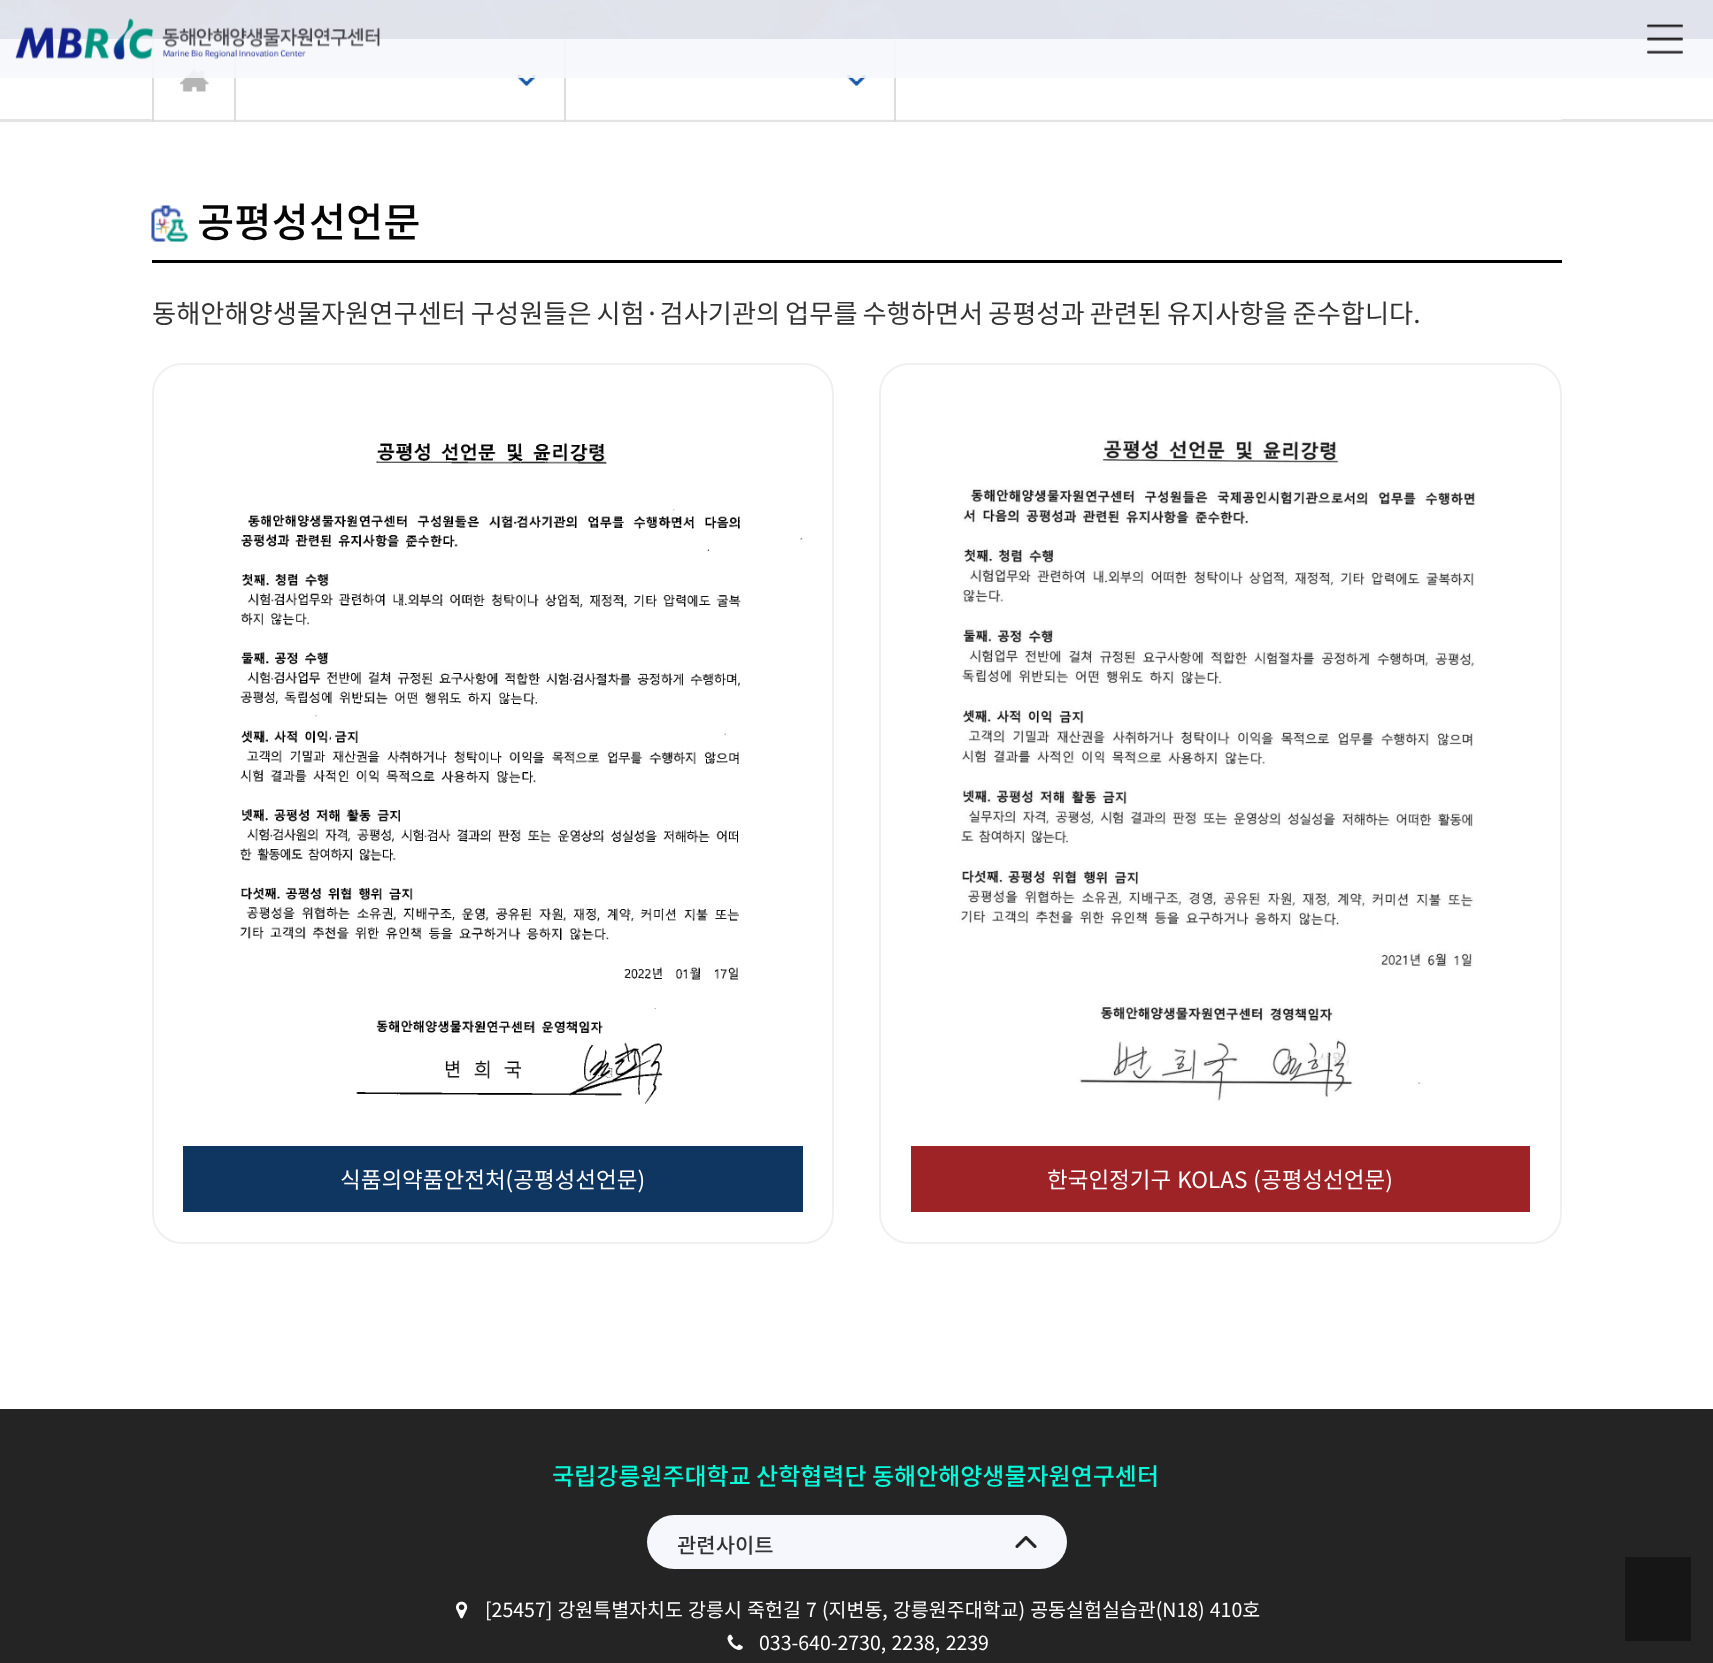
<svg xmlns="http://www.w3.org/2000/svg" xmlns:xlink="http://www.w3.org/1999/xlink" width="1713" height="1663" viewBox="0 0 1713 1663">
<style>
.cls-1{font:500 40.5px Noto Sans KR;fill:#060606}
.cls-2{font:26.25px Noto Sans KR;fill:#333333}
.cls-3{font:22.5px Noto Sans KR;fill:#ffffff}
.cls-4{font:500 24px Noto Sans KR;fill:#07f9da}
.cls-5{font:500 21px Noto Sans KR;fill:#333333}
.cls-6{font:19.5px Noto Sans KR;fill:#ffffff}
</style>
<rect width="100%" height="100%" fill="#ffffff"/>
<image xlink:href="image2.png" x="0" y="0" width="1713" height="39"/>
<rect fill="#e3e3e3" x="0" y="119" width="1713" height="3"/>
<rect fill="#dddddd" x="152" y="39" width="2" height="83"/>
<image xlink:href="image4.png" x="180" y="69" width="29" height="23"/>
<image xlink:href="image3.png" x="154" y="119" width="1408" height="1"/>
<rect fill="#dddddd" x="234" y="39" width="2" height="83"/>
<image xlink:href="image5.png" x="517" y="75" width="19" height="11"/>
<rect fill="#dddddd" x="564" y="39" width="2" height="83"/>
<image xlink:href="image6.png" x="847" y="75" width="19" height="11"/>
<rect fill="#dddddd" x="894" y="39" width="2" height="83"/>
<rect fill="#f5f7fc" fill-opacity="0.9" x="0" y="0" width="1713" height="78"/>
<image xlink:href="image0.png" x="15" y="18" width="365" height="42"/>
<image xlink:href="image1.png" x="1647" y="24" width="36" height="30"/>
<rect fill="#f4f4f4" x="151" y="119" width="1" height="1"/>
<image xlink:href="image7.png" x="151" y="205" width="37" height="37"/>
<rect fill="#000000" x="152" y="260" width="1410" height="3"/>
<rect fill="none" stroke="#f0f0f0" stroke-width="2" x="153" y="364" width="680" height="879" rx="29"/>
<image xlink:href="image8.png" x="240" y="443" width="563" height="661"/>
<rect fill="#0f3561" x="183" y="1146" width="620" height="66"/>
<rect fill="none" stroke="#f0f0f0" stroke-width="2" x="880" y="364" width="681" height="879" rx="29"/>
<image xlink:href="image9.png" x="959" y="438" width="517" height="665"/>
<rect fill="#9e2327" x="911" y="1146" width="619" height="66"/>
<rect fill="#242424" x="0" y="1409" width="1713" height="254"/>
<rect fill="#f5f7fc" x="647" y="1515" width="420" height="54" rx="27"/>
<image xlink:href="image10.png" x="1015" y="1536" width="22" height="12"/>
<image xlink:href="image11.png" x="456" y="1601" width="12" height="18"/>
<image xlink:href="image12.png" x="727" y="1634" width="16" height="16"/>
<rect fill="#161616" x="1625" y="1557" width="66" height="84"/>
<text class="cls-1" x="197" y="237">공평성선언문</text>
<text class="cls-2" x="152" y="323" word-spacing="-1">동해안해양생물자원연구센터 구성원들은 시험·검사기관의 업무를 수행하면서 공평성과 관련된 유지사항을 준수합니다.</text>
<text class="cls-3" x="340" y="1188">식품의약품안전처(공평성선언문)</text>
<text class="cls-3" x="1047" y="1188" word-spacing="1">한국인정기구 KOLAS (공평성선언문)</text>
<text class="cls-4" x="552" y="1485">국립강릉원주대학교 산학협력단 동해안해양생물자원연구센터</text>
<text class="cls-5" x="677" y="1553">관련사이트</text>
<text class="cls-6" x="485" y="1617" word-spacing="0.75">[25457] 강원특별자치도 강릉시 죽헌길 7 (지변동, 강릉원주대학교) 공동실험실습관(N18) 410호</text>
<text class="cls-6" x="759" y="1650" word-spacing="1">033-640-2730, 2238, 2239</text>
</svg>
